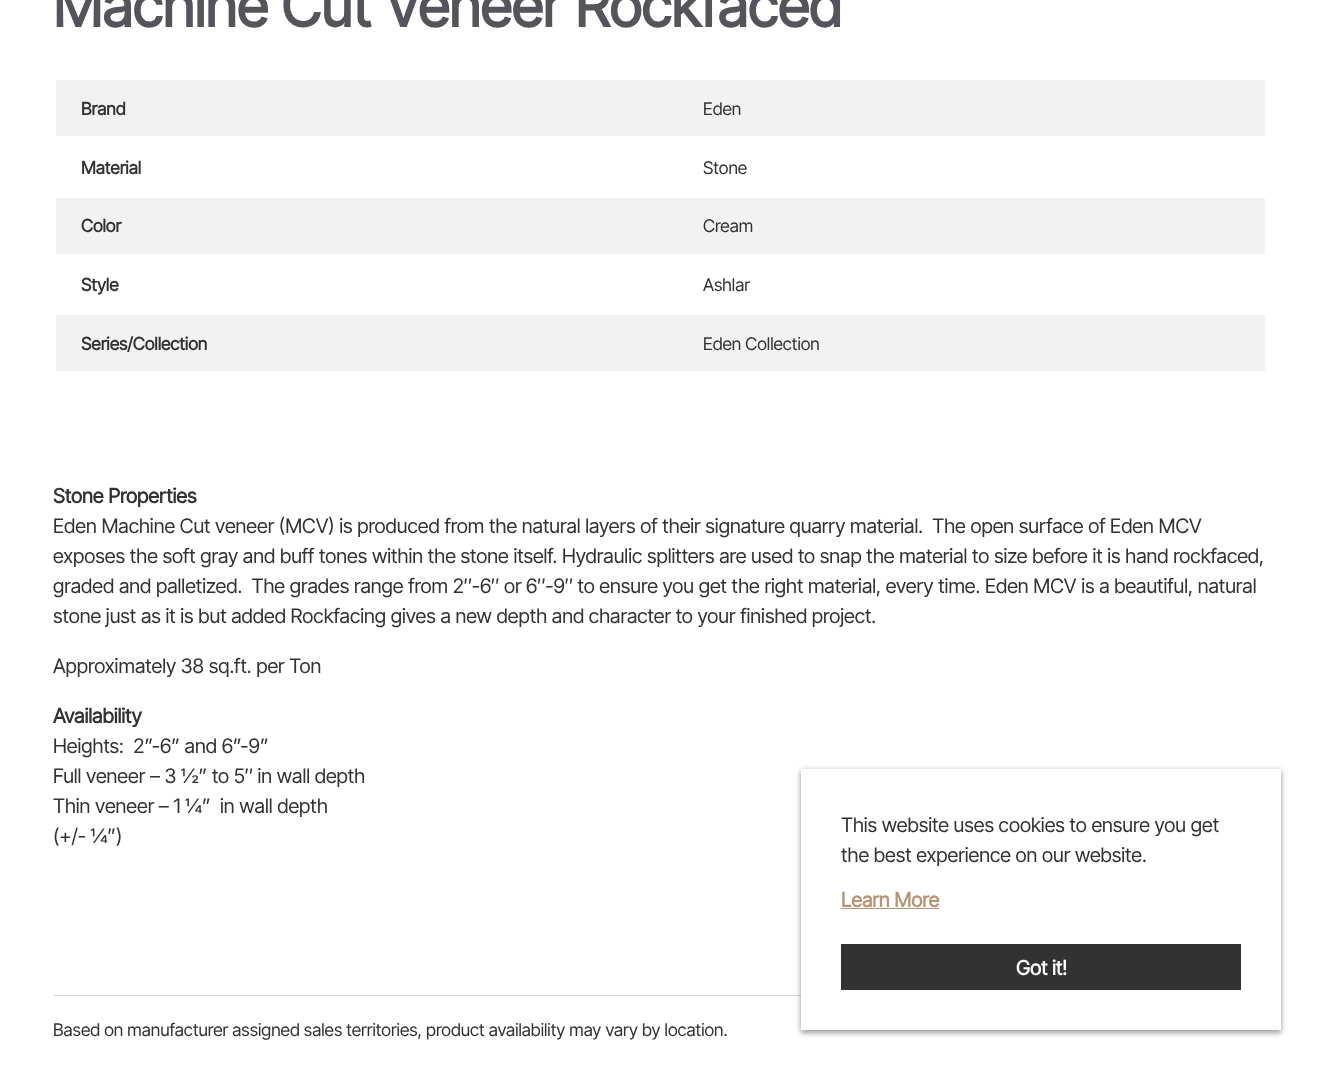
<svg xmlns="http://www.w3.org/2000/svg" xmlns:xlink="http://www.w3.org/1999/xlink" width="1321" height="1070" viewBox="0 0 1321 1070">
<style>
.cls-1{font:bold 58.25px Inter Tight;fill:#54555a}
.cls-2{font:bold 17.5px Inter Tight;fill:#333232}
.cls-3{font:17.5px Inter Tight;fill:#333232}
.cls-4{font:bold 20px Inter Tight;fill:#333232}
.cls-5{font:20px Inter Tight;fill:#333232}
.cls-6{font:bold 20px Inter Tight;fill:#b99272}
.cls-7{font:bold 20px Inter Tight;fill:#ffffff}
</style>
<rect width="100%" height="100%" fill="#ffffff"/>
<rect fill="#f2f2f2" x="56" y="80" width="1209" height="56"/>
<rect fill="#f2f2f2" x="56" y="198" width="1209" height="56"/>
<rect fill="#f2f2f2" x="56" y="315" width="1209" height="56"/>
<rect fill="#d4d4d6" x="54" y="995" width="747" height="1"/>
<rect fill="#000000" fill-opacity="0.14" filter="blur(2.5px)" x="801" y="771" width="480" height="262"/>
<rect fill="#000000" fill-opacity="0.12" filter="blur(2.5px)" x="801" y="773" width="480" height="261"/>
<rect fill="#000000" fill-opacity="0.2" filter="blur(3px)" x="801" y="770" width="480" height="261"/>
<rect fill="#ffffff" x="801" y="769" width="480" height="261"/>
<rect fill="#b99272" x="841" y="908" width="98" height="1"/>
<rect fill="#333232" x="841" y="944" width="400" height="46"/>
<text class="cls-1" x="53" y="27">Machine Cut Veneer Rockfaced</text>
<text class="cls-2" x="81" y="115">Brand</text>
<text class="cls-3" x="703" y="115">Eden</text>
<text class="cls-2" x="81" y="174">Material</text>
<text class="cls-3" x="703" y="174">Stone</text>
<text class="cls-2" x="81" y="232">Color</text>
<text class="cls-3" x="703" y="232">Cream</text>
<text class="cls-2" x="81" y="291">Style</text>
<text class="cls-3" x="703" y="291">Ashlar</text>
<text class="cls-2" x="81" y="350">Series/Collection</text>
<text class="cls-3" x="703" y="350">Eden Collection</text>
<text class="cls-4" x="53" y="503">Stone Properties</text>
<text class="cls-5" xml:space="preserve"><tspan x="53" y="533">Eden Machine Cut veneer (MCV) is produced from the natural layers of their signature quarry material.  The open surface of Eden MCV</tspan><tspan x="53" y="563">exposes the soft gray and buff tones within the stone itself. Hydraulic splitters are used to snap the material to size before it is hand rockfaced,</tspan><tspan x="53" y="593">graded and palletized.  The grades range from 2″-6″ or 6″-9″ to ensure you get the right material, every time. Eden MCV is a beautiful, natural</tspan><tspan x="53" y="623">stone just as it is but added Rockfacing gives a new depth and character to your finished project.</tspan></text>
<text class="cls-5" x="53" y="673">Approximately 38 sq.ft. per Ton</text>
<text class="cls-4" x="53" y="723">Availability</text>
<text class="cls-5" xml:space="preserve"><tspan x="53" y="753">Heights:  2”-6” and 6”-9”</tspan><tspan x="53" y="783">Full veneer – 3 ½” to 5″ in wall depth</tspan><tspan x="53" y="813">Thin veneer – 1 ¼”  in wall depth</tspan><tspan x="53" y="843">(+/- ¼”)</tspan></text>
<text class="cls-3" x="53" y="1036">Based on manufacturer assigned sales territories, product availability may vary by location.</text>
<text class="cls-5"><tspan x="841" y="832">This website uses cookies to ensure you get</tspan><tspan x="841" y="862">the best experience on our website.</tspan></text>
<text class="cls-6" x="841" y="907">Learn More</text>
<text class="cls-7" x="1016" y="975">Got it!</text>
</svg>
